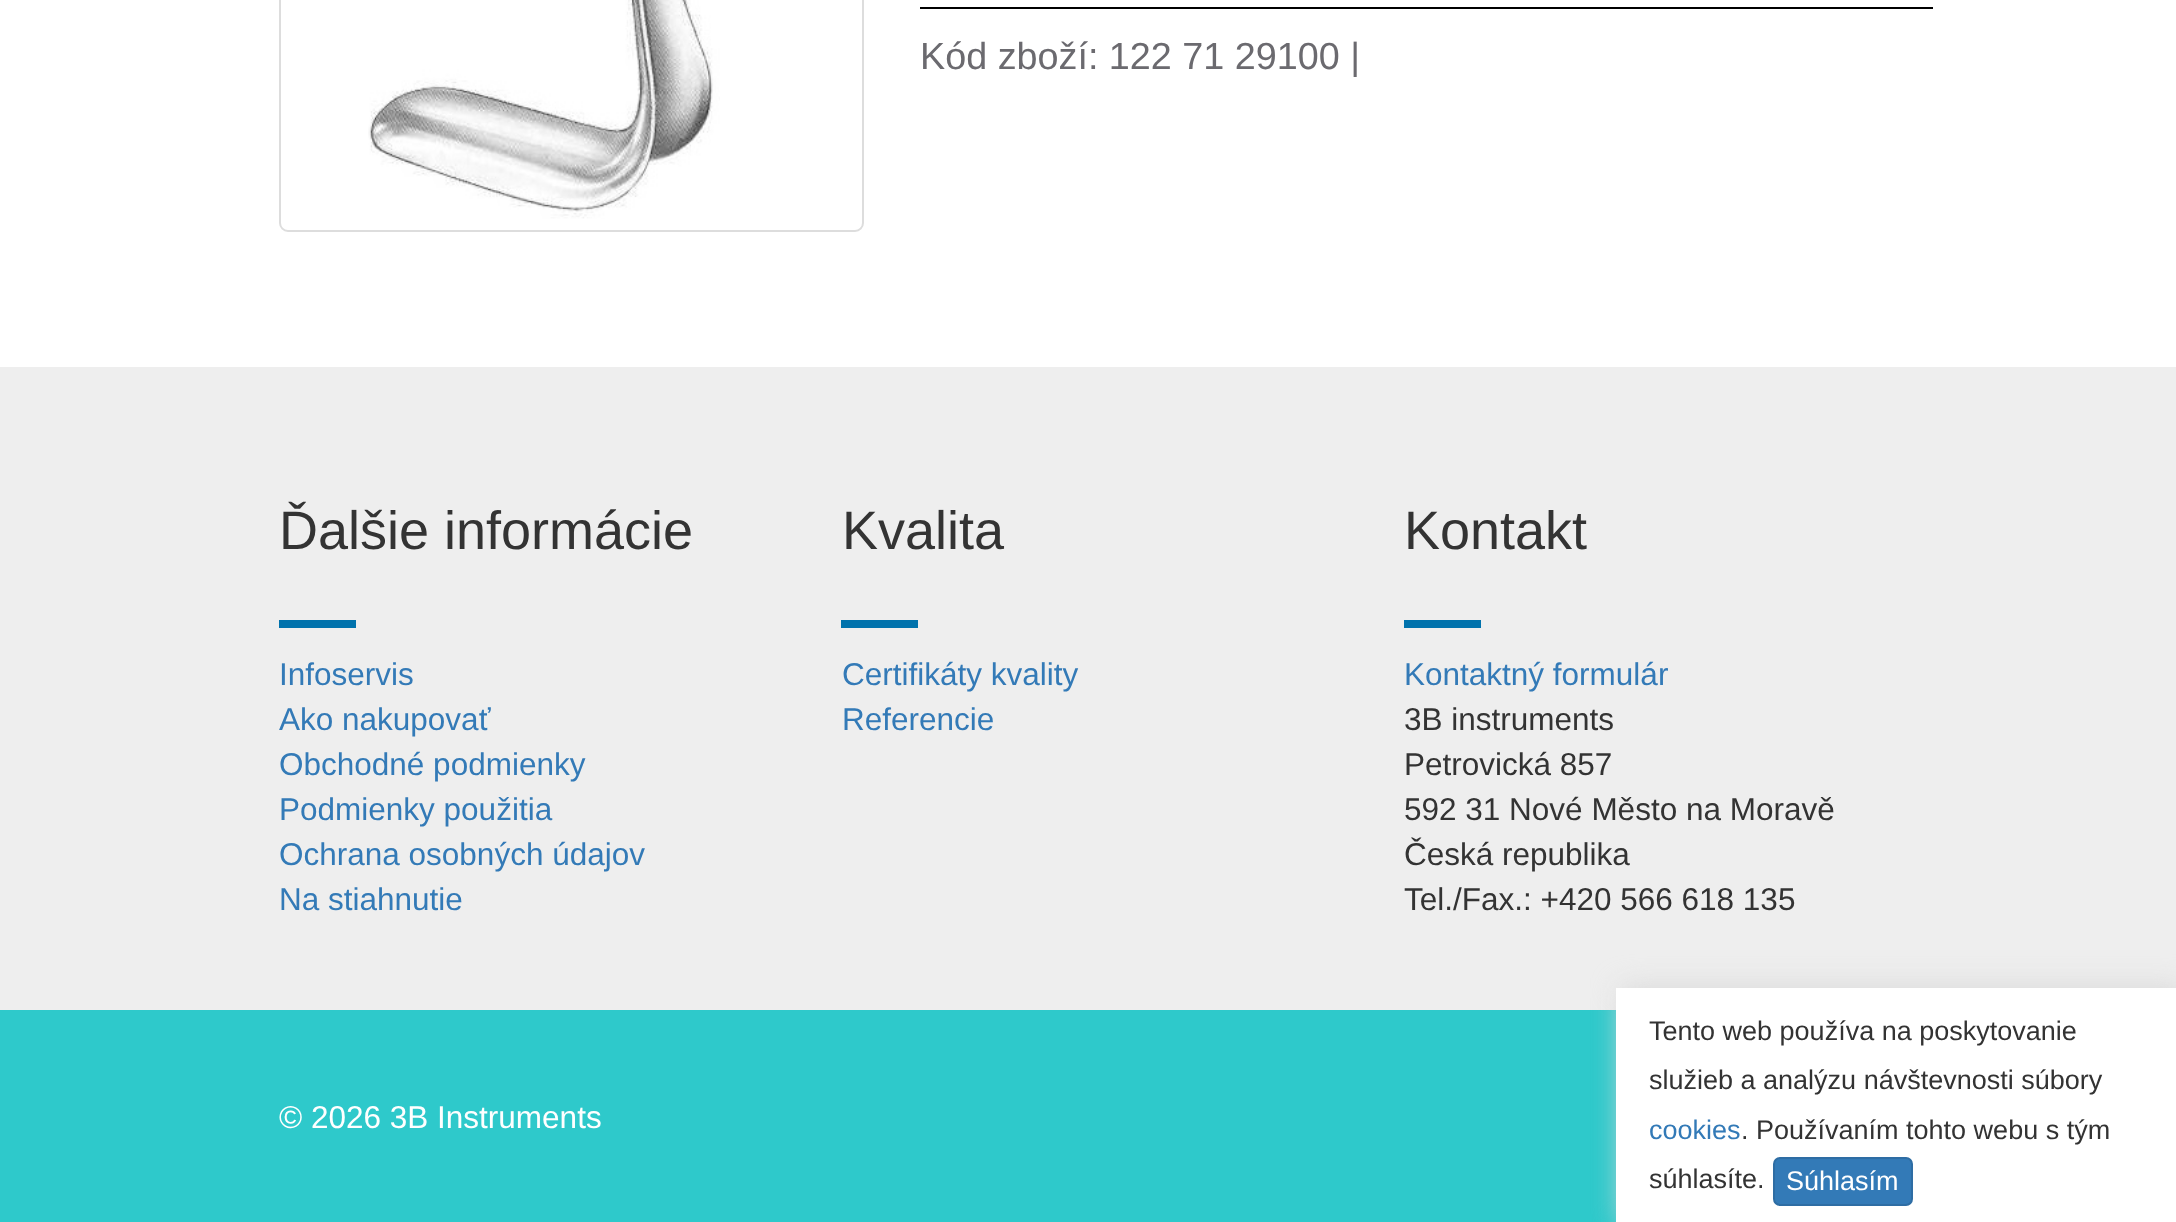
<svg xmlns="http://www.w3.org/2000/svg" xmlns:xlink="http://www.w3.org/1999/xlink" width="2176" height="1222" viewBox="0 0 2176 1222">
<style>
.cls-1{font:37.75px Liberation Sans;fill:#6b6a6f}
.cls-2{font:54px Liberation Sans;fill:#333333}
.cls-3{font:31.5px Liberation Sans;fill:#337ab7}
.cls-4{font:31.5px Liberation Sans;fill:#333333}
.cls-5{font:31.5px Liberation Sans;fill:#ffffff}
.cls-6{font:27px Liberation Sans;fill:#333333}
.cls-7{font:27px Liberation Sans;fill:#337ab7}
.cls-8{font:27px Liberation Sans;fill:#ffffff}
</style>
<rect width="100%" height="100%" fill="#ffffff"/>
<rect fill="none" stroke="#dddddd" stroke-width="2" x="280" y="-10" width="583" height="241" rx="8"/>
<image xlink:href="image0.png" x="368" y="0" width="352" height="219"/>
<rect fill="#000000" x="920" y="7" width="1013" height="2"/>
<rect fill="#eeeeee" x="0" y="367" width="2176" height="643"/>
<rect fill="#0072ac" x="279" y="620" width="77" height="8"/>
<rect fill="#0072ac" x="841" y="620" width="77" height="8"/>
<rect fill="#0072ac" x="1404" y="620" width="77" height="8"/>
<rect fill="#2ec9cb" x="0" y="1010" width="1616" height="212"/>
<rect fill="#d7d7d7" filter="blur(14.5px)" x="1622" y="988" width="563" height="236"/>
<rect fill="#ffffff" x="1616" y="988" width="560" height="234"/>
<rect fill="#337ab7" stroke="#2e6da4" stroke-width="2" x="1774" y="1158" width="138" height="47" rx="6"/>
<text class="cls-1" x="920" y="69">Kód zboží: 122 71 29100 |</text>
<text class="cls-2" x="279" y="549">Ďalšie informácie</text>
<text class="cls-3"><tspan x="279" y="685">Infoservis</tspan><tspan x="279" y="730">Ako nakupovať</tspan><tspan x="279" y="775">Obchodné podmienky</tspan><tspan x="279" y="820">Podmienky použitia</tspan><tspan x="279" y="865">Ochrana osobných údajov</tspan><tspan x="279" y="910">Na stiahnutie</tspan></text>
<text class="cls-2" x="842" y="549">Kvalita</text>
<text class="cls-3"><tspan x="842" y="685">Certifikáty kvality</tspan><tspan x="842" y="730">Referencie</tspan></text>
<text class="cls-2" x="1404" y="549">Kontakt</text>
<text class="cls-3" x="1404" y="685">Kontaktný formulár</text>
<text class="cls-4"><tspan x="1404" y="730">3B instruments</tspan><tspan x="1404" y="775">Petrovická 857</tspan><tspan x="1404" y="820">592 31 Nové Město na Moravě</tspan><tspan x="1404" y="865">Česká republika</tspan><tspan x="1404" y="910">Tel./Fax.: +420 566 618 135</tspan></text>
<text class="cls-5" x="279" y="1128">© 2026 3B Instruments</text>
<text class="cls-6"><tspan x="1649" y="1040">Tento web používa na poskytovanie</tspan><tspan x="1649" y="1089">služieb a analýzu návštevnosti súbory</tspan></text>
<text class="cls-7" x="1649" y="1139">cookies</text>
<text class="cls-6" x="1741" y="1139">. Používaním tohto webu s tým</text>
<text class="cls-6" x="1649" y="1188">súhlasíte.</text>
<text class="cls-8" x="1786" y="1190">Súhlasím</text>
</svg>
